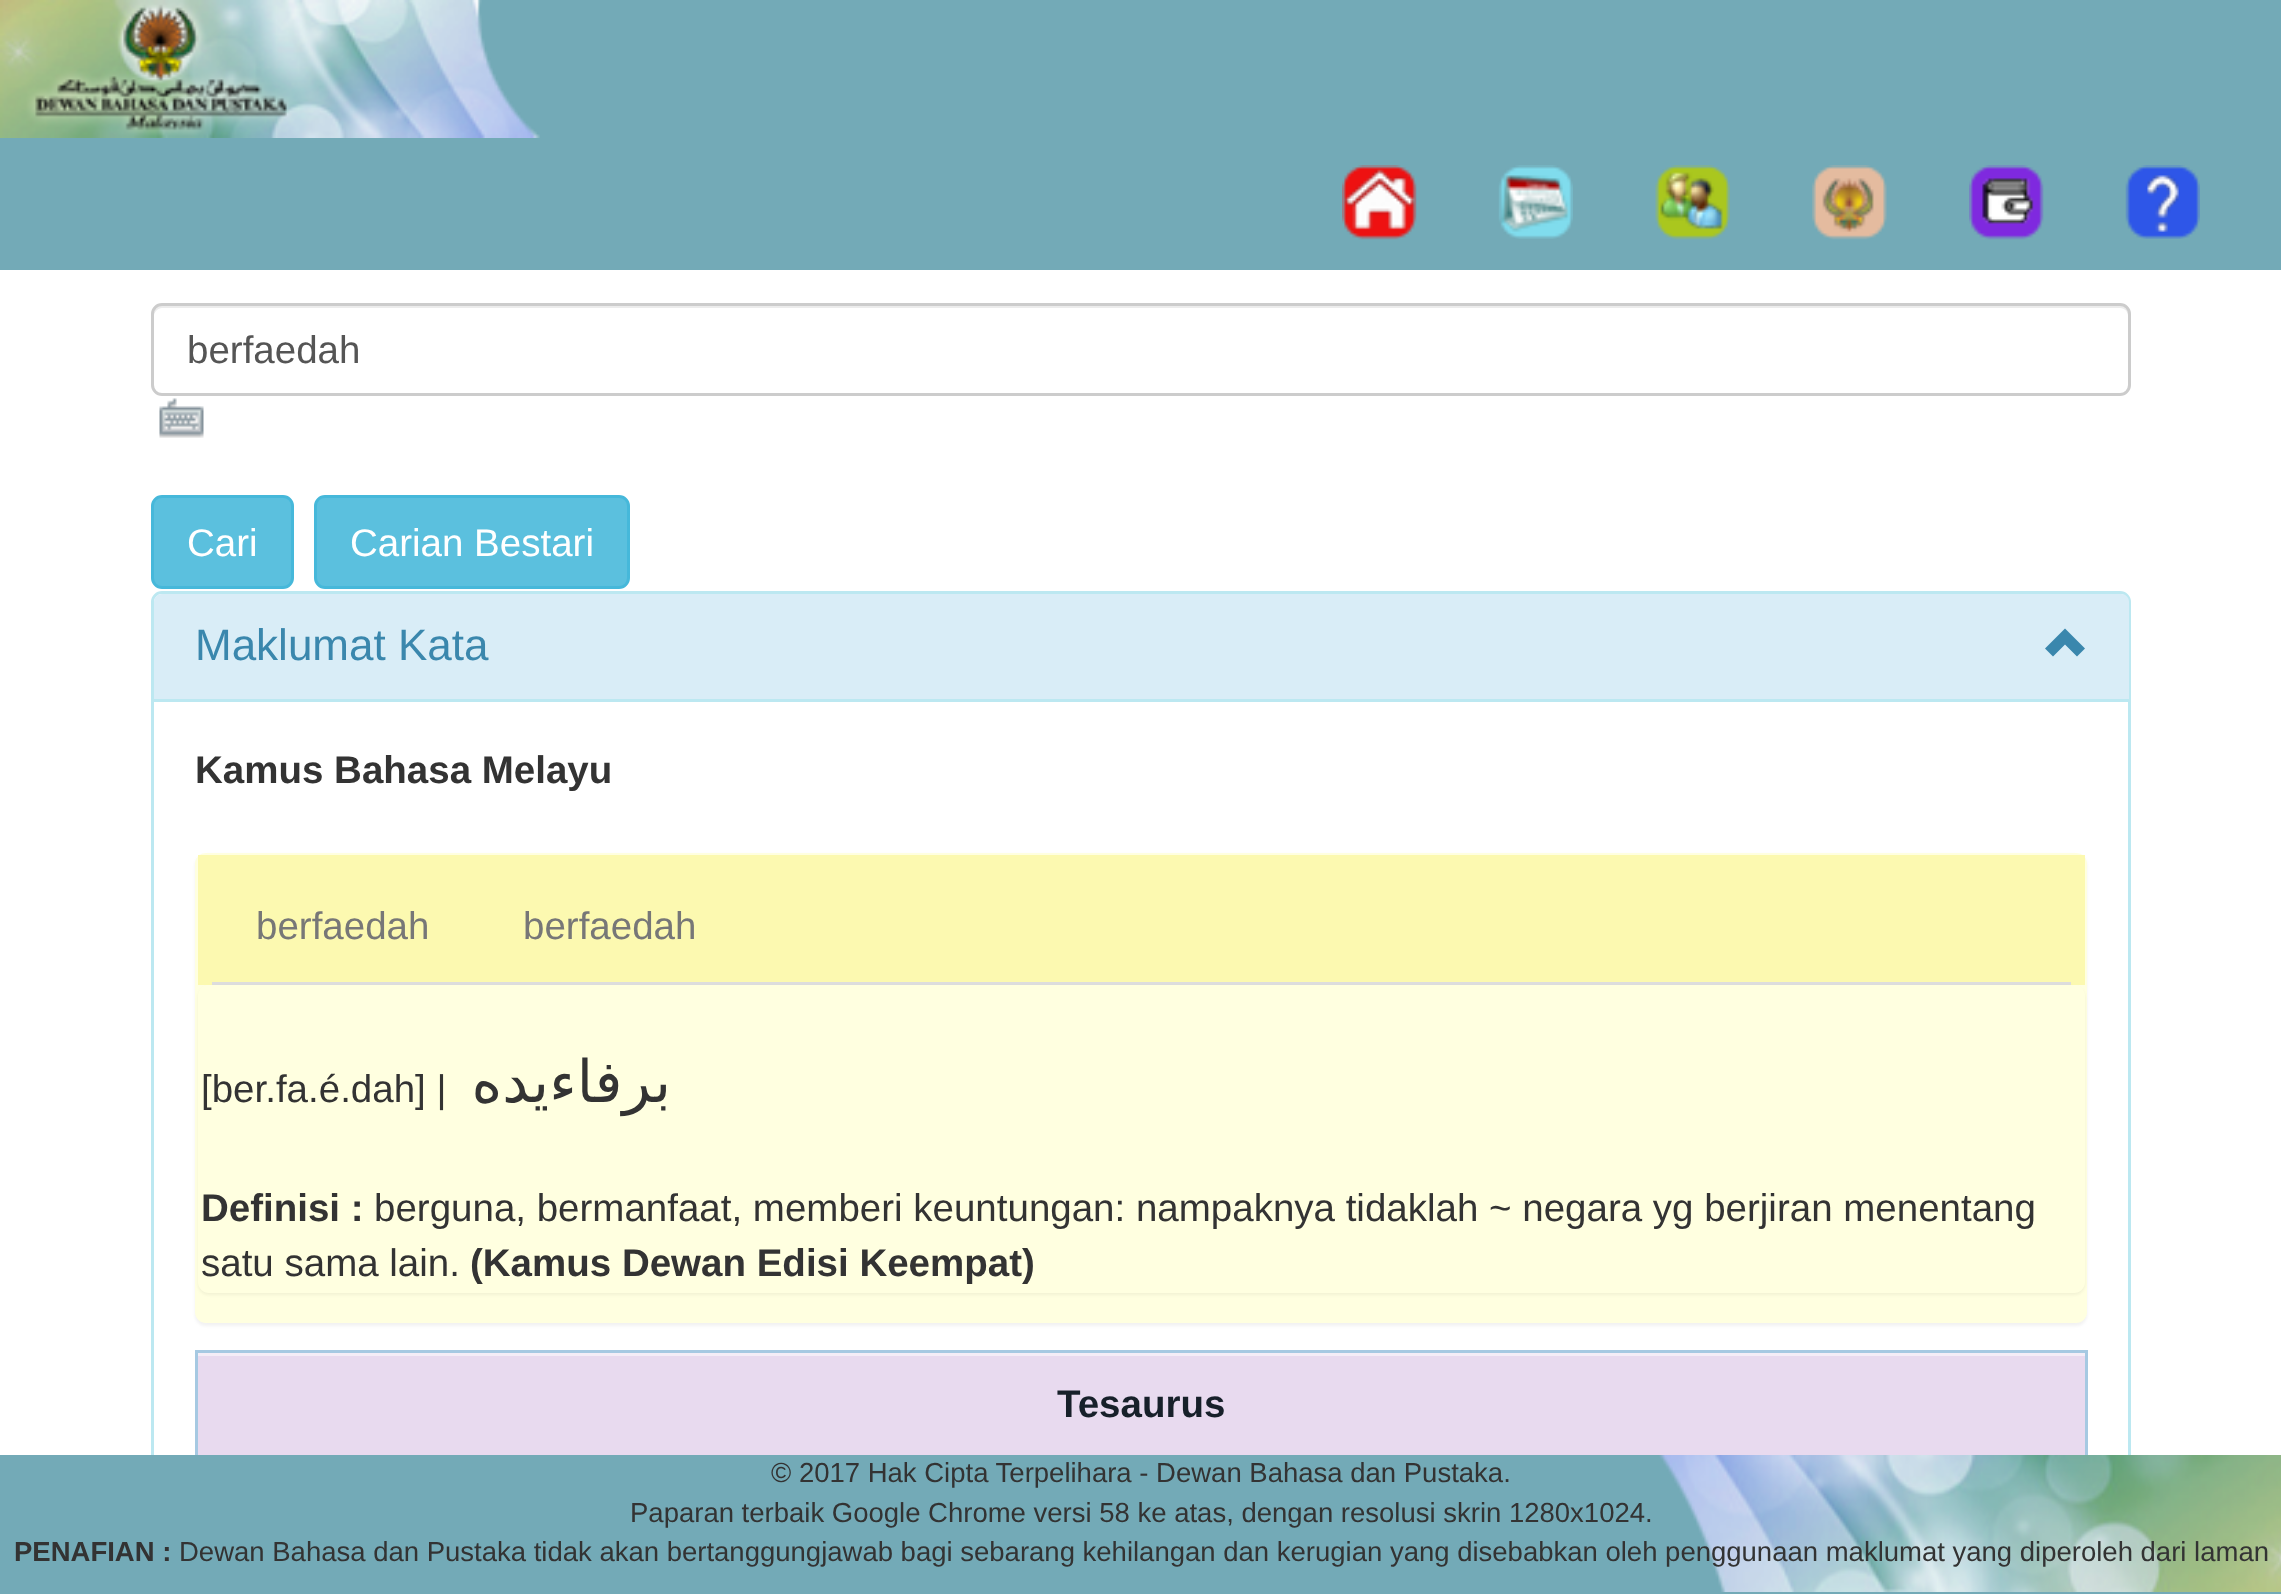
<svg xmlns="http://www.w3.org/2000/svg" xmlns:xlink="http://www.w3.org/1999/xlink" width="2281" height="1594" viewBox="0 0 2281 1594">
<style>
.cls-1{font:38.5px Liberation Sans;fill:#555555}
.cls-2{font:38.5px Liberation Sans;fill:#ffffff}
.cls-3{font:44px Liberation Sans;fill:#3a87ad}
.cls-4{font:bold 38.5px Liberation Sans;fill:#333333}
.cls-5{font:38.5px Liberation Sans;fill:#777777}
.cls-6{font:38.5px Liberation Sans;fill:#333333}
.cls-7{font:58.5px DejaVu Sans;direction:rtl;fill:#333333}
.cls-8{font:bold 38.5px Liberation Sans;fill:#17202a}
.cls-9{font:27.5px Liberation Sans;fill:#333333}
.cls-10{font:bold 27.5px Liberation Sans;fill:#333333}
</style>
<rect width="100%" height="100%" fill="#ffffff"/>
<rect fill="#73aab7" x="0" y="0" width="2281" height="270"/>
<image xlink:href="image0.png" x="0" y="0" width="540" height="138"/>
<image xlink:href="image1.png" x="1342" y="165" width="75" height="75"/>
<image xlink:href="image2.png" x="1498" y="165" width="75" height="74"/>
<image xlink:href="image3.png" x="1655" y="165" width="75" height="75"/>
<image xlink:href="image4.png" x="1812" y="165" width="75" height="75"/>
<image xlink:href="image5.png" x="1969" y="165" width="75" height="75"/>
<image xlink:href="image6.png" x="2125" y="165" width="75" height="74"/>
<path fill="#ececec" d="M162 308H2120C2125 308 2128 312 2128 316V389C2129 388 2129 386 2129 385V313C2129 309 2125 305 2121 305H162C158 305 154 309 154 313V316C154 312 158 308 162 308Z"/>
<rect fill="none" stroke="#cccccc" stroke-width="3" x="152.5" y="304.5" width="1977" height="90" rx="9.5"/>
<image xlink:href="image7.png" x="159" y="398" width="45" height="40"/>
<rect fill="#5bc0de" stroke="#46b8da" stroke-width="3" x="152.5" y="496.5" width="140" height="91" rx="9.5"/>
<rect fill="#5bc0de" stroke="#46b8da" stroke-width="3" x="315.5" y="496.5" width="313" height="91" rx="9.5"/>
<rect fill="none" stroke="#bce8f1" stroke-width="3" x="152.5" y="592.5" width="1977" height="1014" rx="9.5"/>
<path fill="#d9edf7" d="M162 594H2121C2125.5 594 2129 597.5 2129 602V701H154V602C154 597.5 157.5 594 162 594Z"/>
<rect fill="#bce8f1" x="154" y="699" width="1975" height="3"/>
<path fill="#3a87ad" d="M2077 656.5L2085 648.5L2065 628.5L2045 648.5L2053 656.5L2065 644.5Z"/>
<rect fill="#000000" fill-opacity="0.05" filter="blur(1.5px)" x="195" y="855" width="1892" height="471" rx="11"/>
<rect fill="#ffffe0" x="195" y="853" width="1892" height="470" rx="11"/>
<rect fill="#fcf9b0" x="198" y="855" width="1887" height="130"/>
<rect fill="#dddddd" x="212" y="982" width="1859" height="3"/>
<rect fill="#000000" fill-opacity="0.05" filter="blur(1.5px)" x="198" y="987" width="1887" height="308" rx="11"/>
<rect fill="#ffffe0" x="198" y="985" width="1887" height="308" rx="11"/>
<rect fill="#a6c9e2" x="195" y="1350" width="1892" height="3"/>
<rect fill="#f4edf7" x="198" y="1353" width="1889" height="3"/>
<rect fill="#a6c9e2" x="2085" y="1350" width="3" height="105"/>
<rect fill="#a6c9e2" x="195" y="1350" width="3" height="105"/>
<rect fill="#e8daef" x="198" y="1356" width="1887" height="99"/>
<rect fill="#73aab7" x="0" y="1455" width="2281" height="139"/>
<image xlink:href="image8.png" x="1659" y="1455" width="622" height="137"/>
<text class="cls-1" x="187" y="363">berfaedah</text>
<text class="cls-2" x="187" y="556">Cari</text>
<text class="cls-2" x="350" y="556">Carian Bestari</text>
<text class="cls-3" x="195" y="660">Maklumat Kata</text>
<text class="cls-4" x="195" y="783">Kamus Bahasa Melayu</text>
<text class="cls-5" x="256" y="939">berfaedah</text>
<text class="cls-5" x="523" y="939">berfaedah</text>
<text class="cls-6" x="201" y="1102">[ber.fa.é.dah] |</text>
<text class="cls-7" x="671" y="1102">برفاءيده</text>
<text class="cls-4" x="201" y="1221">Definisi :</text>
<text class="cls-6" x="374" y="1221">berguna, bermanfaat, memberi keuntungan: nampaknya tidaklah ~ negara yg berjiran menentang</text>
<text class="cls-6" x="201" y="1276">satu sama lain.</text>
<text class="cls-4" x="470" y="1276">(Kamus Dewan Edisi Keempat)</text>
<text class="cls-8" x="1057" y="1417">Tesaurus</text>
<text class="cls-9" x="771" y="1482">© 2017 Hak Cipta Terpelihara - Dewan Bahasa dan Pustaka.</text>
<text class="cls-9" x="630" y="1522">Paparan terbaik Google Chrome versi 58 ke atas, dengan resolusi skrin 1280x1024.</text>
<text class="cls-10" x="14" y="1561">PENAFIAN :</text>
<text class="cls-9" x="179" y="1561">Dewan Bahasa dan Pustaka tidak akan bertanggungjawab bagi sebarang kehilangan dan kerugian yang disebabkan oleh penggunaan maklumat yang diperoleh dari laman</text>
</svg>
